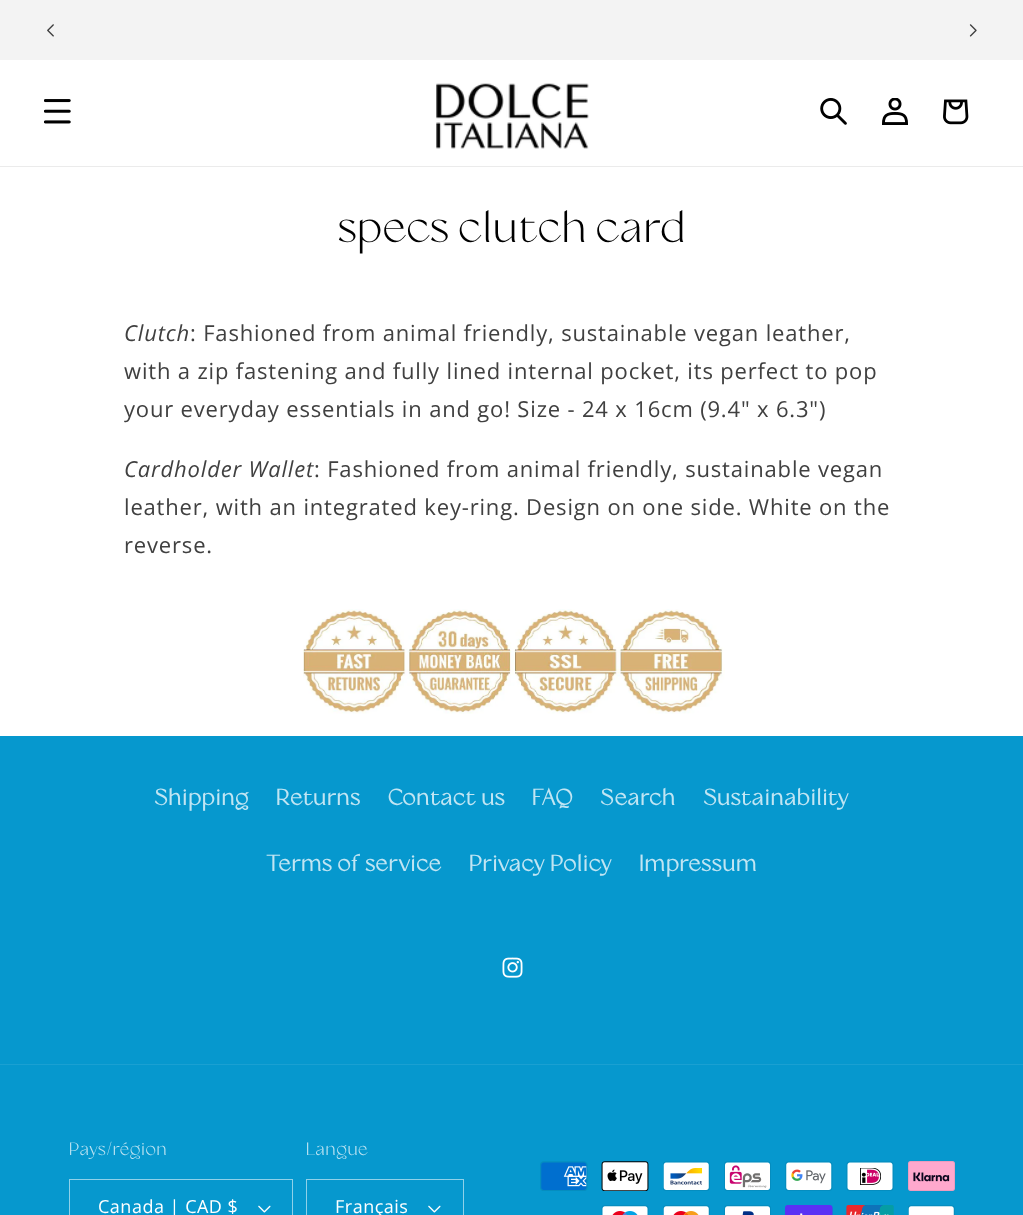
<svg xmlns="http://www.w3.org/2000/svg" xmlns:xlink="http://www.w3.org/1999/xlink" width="1023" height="1215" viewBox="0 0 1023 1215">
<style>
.cls-1{font:43.75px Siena;letter-spacing:0.75px;fill:#000000}
.cls-2{font:italic 22px Open Sans;letter-spacing:0.83px;fill:#404040}
.cls-3{font:22px Open Sans;letter-spacing:0.83px;fill:#404040}
.cls-4{font:bold 22.5px Siena;letter-spacing:0.83px;fill:#c1e5f3}
.cls-5{font:18px Siena;letter-spacing:0.5px;fill:#c1e5f3}
.cls-6{font:18px Open Sans;letter-spacing:0.5px;fill:#ffffff}
</style>
<rect width="100%" height="100%" fill="#ffffff"/>
<rect fill="#f3f3f3" x="0" y="0" width="1023" height="60"/>
<image xlink:href="image0.png" x="47" y="24" width="7" height="13"/>
<image xlink:href="image1.png" x="969" y="24" width="8" height="13"/>
<rect fill="#ebebeb" x="0" y="166" width="1023" height="1"/>
<image xlink:href="image2.png" x="44" y="99" width="27" height="25"/>
<image xlink:href="image3.png" x="436" y="83" width="153" height="66"/>
<image xlink:href="image4.png" x="820" y="98" width="27" height="27"/>
<image xlink:href="image5.png" x="882" y="98" width="26" height="27"/>
<image xlink:href="image6.png" x="943" y="99" width="26" height="26"/>
<image xlink:href="image7.png" x="303" y="609" width="422" height="105"/>
<rect fill="#0698ce" x="0" y="736" width="1023" height="479"/>
<image xlink:href="image8.png" x="502" y="957" width="21" height="21"/>
<rect fill="#1aa0d2" x="0" y="1064" width="1023" height="1"/>
<image xlink:href="image9.png" x="258" y="1205" width="13" height="8"/>
<rect fill="none" stroke="#8fd1e9" x="69.5" y="1179.5" width="223" height="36"/>
<image xlink:href="image9.png" x="428" y="1205" width="13" height="8"/>
<rect fill="none" stroke="#8fd1e9" x="306.5" y="1179.5" width="157" height="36"/>
<image xlink:href="image10.png" x="540" y="1161" width="48" height="30"/>
<image xlink:href="image11.png" x="601" y="1161" width="48" height="30"/>
<image xlink:href="image12.png" x="663" y="1161" width="47" height="30"/>
<image xlink:href="image13.png" x="724" y="1161" width="47" height="30"/>
<image xlink:href="image14.png" x="785" y="1161" width="48" height="30"/>
<image xlink:href="image15.png" x="846" y="1161" width="48" height="30"/>
<image xlink:href="image16.png" x="908" y="1161" width="47" height="30"/>
<image xlink:href="image17.png" x="601" y="1205" width="48" height="10"/>
<image xlink:href="image18.png" x="663" y="1205" width="47" height="10"/>
<image xlink:href="image19.png" x="724" y="1205" width="47" height="10"/>
<image xlink:href="image20.png" x="785" y="1205" width="48" height="10"/>
<image xlink:href="image21.png" x="846" y="1205" width="48" height="10"/>
<image xlink:href="image22.png" x="908" y="1205" width="47" height="10"/>
<text class="cls-1" x="338" y="242">specs clutch card</text>
<text class="cls-2" x="124" y="341">Clutch</text>
<text class="cls-3" x="190" y="341">: Fashioned from animal friendly, sustainable vegan leather,</text>
<text class="cls-3"><tspan x="124" y="379">with a zip fastening and fully lined internal pocket, its perfect to pop</tspan><tspan x="124" y="417">your everyday essentials in and go! Size - 24 x 16cm (9.4" x 6.3")</tspan></text>
<text class="cls-2" x="124" y="477">Cardholder Wallet</text>
<text class="cls-3" x="314" y="477">: Fashioned from animal friendly, sustainable vegan</text>
<text class="cls-3"><tspan x="124" y="515">leather, with an integrated key-ring. Design on one side. White on the</tspan><tspan x="124" y="553">reverse.</tspan></text>
<text class="cls-4" x="154" y="805">Shipping</text>
<text class="cls-4" x="276" y="805">Returns</text>
<text class="cls-4" x="388" y="805">Contact us</text>
<text class="cls-4" x="532" y="805">FAQ</text>
<text class="cls-4" x="600" y="805">Search</text>
<text class="cls-4" x="703" y="805">Sustainability</text>
<text class="cls-4" x="266" y="871">Terms of service</text>
<text class="cls-4" x="469" y="871">Privacy Policy</text>
<text class="cls-4" x="639" y="871">Impressum</text>
<text class="cls-5" x="69" y="1155">Pays/région</text>
<text class="cls-6" x="98" y="1213">Canada | CAD $</text>
<text class="cls-5" x="306" y="1155">Langue</text>
<text class="cls-6" x="335" y="1213">Français</text>
</svg>
